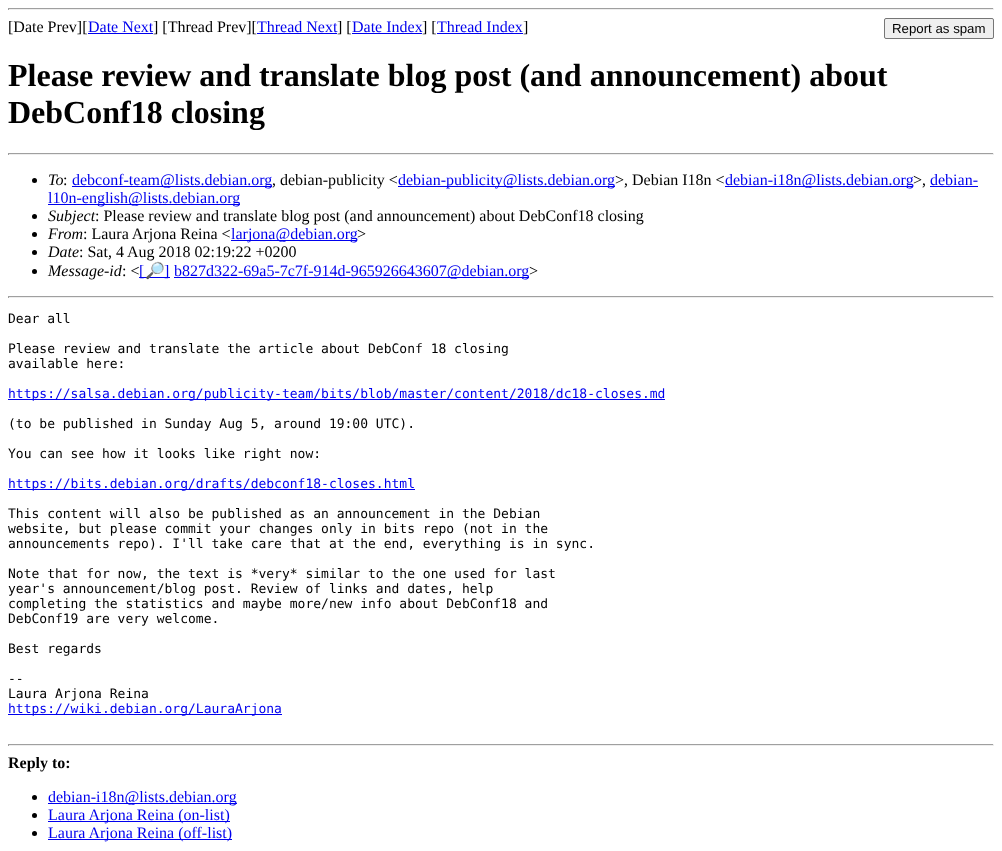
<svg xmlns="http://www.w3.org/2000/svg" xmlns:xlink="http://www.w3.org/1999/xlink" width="1002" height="851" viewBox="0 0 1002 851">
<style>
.cls-1{font:16px Liberation Serif;fill:#000000}
.cls-2{font:16px Liberation Serif;fill:#0000ee}
.cls-3{font:13.25px Liberation Sans;fill:#000000}
.cls-4{font:bold 32px Liberation Serif;fill:#000000}
.cls-5{font:italic 16px Liberation Serif;fill:#000000}
.cls-6{font:16px Noto Color Emoji;fill:#0000ee}
.cls-7{font:13px DejaVu Sans Mono;fill:#000000}
.cls-8{font:13px DejaVu Sans Mono;fill:#0000ee}
.cls-9{font:bold 16px Liberation Serif;fill:#000000}
</style>
<rect width="100%" height="100%" fill="#ffffff"/>
<rect fill="#9f9f9f" x="8" y="8" width="986" height="1"/>
<rect fill="#eeeeee" x="993" y="8" width="1" height="2"/>
<rect fill="#eeeeee" x="8" y="9" width="986" height="1"/>
<rect fill="#9f9f9f" x="8" y="8" width="1" height="2"/>
<rect fill="#0000ee" x="88" y="33" width="65" height="1"/>
<rect fill="#0000ee" x="257" y="33" width="80" height="1"/>
<rect fill="#0000ee" x="352" y="33" width="70" height="1"/>
<rect fill="#0000ee" x="437" y="33" width="86" height="1"/>
<rect fill="#efefef" stroke="#767676" x="884.5" y="18.5" width="109" height="20" rx="1.5"/>
<rect fill="#9f9f9f" x="8" y="153" width="986" height="1"/>
<rect fill="#eeeeee" x="993" y="153" width="1" height="2"/>
<rect fill="#eeeeee" x="8" y="154" width="986" height="1"/>
<rect fill="#9f9f9f" x="8" y="153" width="1" height="2"/>
<circle fill="#000000" cx="34.5" cy="180.5" r="2.5"/>
<rect fill="#0000ee" x="72" y="186" width="200" height="1"/>
<rect fill="#0000ee" x="398" y="186" width="217" height="1"/>
<rect fill="#0000ee" x="725" y="186" width="188" height="1"/>
<rect fill="#0000ee" x="930" y="186" width="48" height="1"/>
<rect fill="#0000ee" x="48" y="204" width="192" height="1"/>
<circle fill="#000000" cx="34.5" cy="216.5" r="2.5"/>
<circle fill="#000000" cx="34.5" cy="234.5" r="2.5"/>
<rect fill="#0000ee" x="231" y="240" width="126" height="1"/>
<circle fill="#000000" cx="34.5" cy="252.5" r="2.5"/>
<circle fill="#000000" cx="34.5" cy="271.5" r="2.5"/>
<rect fill="#0000ee" x="139" y="277" width="31" height="1"/>
<rect fill="#0000ee" x="174" y="277" width="355" height="1"/>
<rect fill="#9f9f9f" x="8" y="296" width="986" height="1"/>
<rect fill="#eeeeee" x="993" y="296" width="1" height="2"/>
<rect fill="#eeeeee" x="8" y="297" width="986" height="1"/>
<rect fill="#9f9f9f" x="8" y="296" width="1" height="2"/>
<rect fill="#0000ee" x="8" y="399" width="657" height="1"/>
<rect fill="#0000ee" x="8" y="489" width="407" height="1"/>
<rect fill="#0000ee" x="8" y="714" width="274" height="1"/>
<rect fill="#9f9f9f" x="8" y="744" width="986" height="1"/>
<rect fill="#eeeeee" x="993" y="744" width="1" height="2"/>
<rect fill="#eeeeee" x="8" y="745" width="986" height="1"/>
<rect fill="#9f9f9f" x="8" y="744" width="1" height="2"/>
<circle fill="#000000" cx="34.5" cy="797.5" r="2.5"/>
<rect fill="#0000ee" x="48" y="803" width="189" height="1"/>
<circle fill="#000000" cx="34.5" cy="815.5" r="2.5"/>
<rect fill="#0000ee" x="48" y="821" width="182" height="1"/>
<circle fill="#000000" cx="34.5" cy="833.5" r="2.5"/>
<rect fill="#0000ee" x="48" y="839" width="184" height="1"/>
<text class="cls-1" x="8" y="32">[Date Prev][</text>
<text class="cls-2" x="88" y="32">Date Next</text>
<text class="cls-1" x="153" y="32">] [Thread Prev][</text>
<text class="cls-2" x="257" y="32">Thread Next</text>
<text class="cls-1" x="337" y="32">] [</text>
<text class="cls-2" x="352" y="32">Date Index</text>
<text class="cls-1" x="422" y="32">] [</text>
<text class="cls-2" x="437" y="32">Thread Index</text>
<text class="cls-1" x="523" y="32">]</text>
<text class="cls-3" x="892" y="33">Report as spam</text>
<text class="cls-4"><tspan x="8" y="86">Please review and translate blog post (and announcement) about</tspan><tspan x="8" y="123">DebConf18 closing</tspan></text>
<text class="cls-5" x="48" y="185">To</text>
<text class="cls-1" x="63" y="185">:</text>
<text class="cls-2" x="72" y="185">debconf-team@lists.debian.org</text>
<text class="cls-1" x="272" y="185">, debian-publicity &lt;</text>
<text class="cls-2" x="398" y="185">debian-publicity@lists.debian.org</text>
<text class="cls-1" x="615" y="185">&gt;, Debian I18n &lt;</text>
<text class="cls-2" x="725" y="185">debian-i18n@lists.debian.org</text>
<text class="cls-1" x="913" y="185">&gt;,</text>
<text class="cls-2" x="930" y="185">debian-</text>
<text class="cls-2" x="48" y="203">l10n-english@lists.debian.org</text>
<text class="cls-5" x="48" y="221">Subject</text>
<text class="cls-1" x="95" y="221">: Please review and translate blog post (and announcement) about DebConf18 closing</text>
<text class="cls-5" x="48" y="239">From</text>
<text class="cls-1" x="83" y="239">: Laura Arjona Reina &lt;</text>
<text class="cls-2" x="231" y="239">larjona@debian.org</text>
<text class="cls-1" x="357" y="239">&gt;</text>
<text class="cls-5" x="48" y="257">Date</text>
<text class="cls-1" x="79" y="257">: Sat, 4 Aug 2018 02:19:22 +0200</text>
<text class="cls-5" x="48" y="276">Message-id</text>
<text class="cls-1" x="122" y="276">: &lt;</text>
<text class="cls-2" x="139" y="276">[</text>
<text class="cls-6" x="145" y="276">🔎</text>
<text class="cls-2" x="164" y="276">]</text>
<text class="cls-2" x="174" y="276">b827d322-69a5-7c7f-914d-965926643607@debian.org</text>
<text class="cls-1" x="529" y="276">&gt;</text>
<text class="cls-7" x="8" y="323">Dear all</text>
<text class="cls-7"><tspan x="8" y="353">Please review and translate the article about DebConf 18 closing</tspan><tspan x="8" y="368">available here:</tspan></text>
<text class="cls-8" x="8" y="398">https://salsa.debian.org/publicity-team/bits/blob/master/content/2018/dc18-closes.md</text>
<text class="cls-7" x="8" y="428">(to be published in Sunday Aug 5, around 19:00 UTC).</text>
<text class="cls-7" x="8" y="458">You can see how it looks like right now:</text>
<text class="cls-8" x="8" y="488">https://bits.debian.org/drafts/debconf18-closes.html</text>
<text class="cls-7"><tspan x="8" y="518">This content will also be published as an announcement in the Debian</tspan><tspan x="8" y="533">website, but please commit your changes only in bits repo (not in the</tspan><tspan x="8" y="548">announcements repo). I'll take care that at the end, everything is in sync.</tspan></text>
<text class="cls-7"><tspan x="8" y="578">Note that for now, the text is *very* similar to the one used for last</tspan><tspan x="8" y="593">year's announcement/blog post. Review of links and dates, help</tspan><tspan x="8" y="608">completing the statistics and maybe more/new info about DebConf18 and</tspan><tspan x="8" y="623">DebConf19 are very welcome.</tspan></text>
<text class="cls-7" x="8" y="653">Best regards</text>
<text class="cls-7"><tspan x="8" y="683">--</tspan><tspan x="8" y="698">Laura Arjona Reina</tspan></text>
<text class="cls-8" x="8" y="713">https://wiki.debian.org/LauraArjona</text>
<text class="cls-9" x="8" y="768">Reply to:</text>
<text class="cls-2"><tspan x="48" y="802">debian-i18n@lists.debian.org</tspan><tspan x="48" y="820">Laura Arjona Reina (on-list)</tspan><tspan x="48" y="838">Laura Arjona Reina (off-list)</tspan></text>
</svg>
